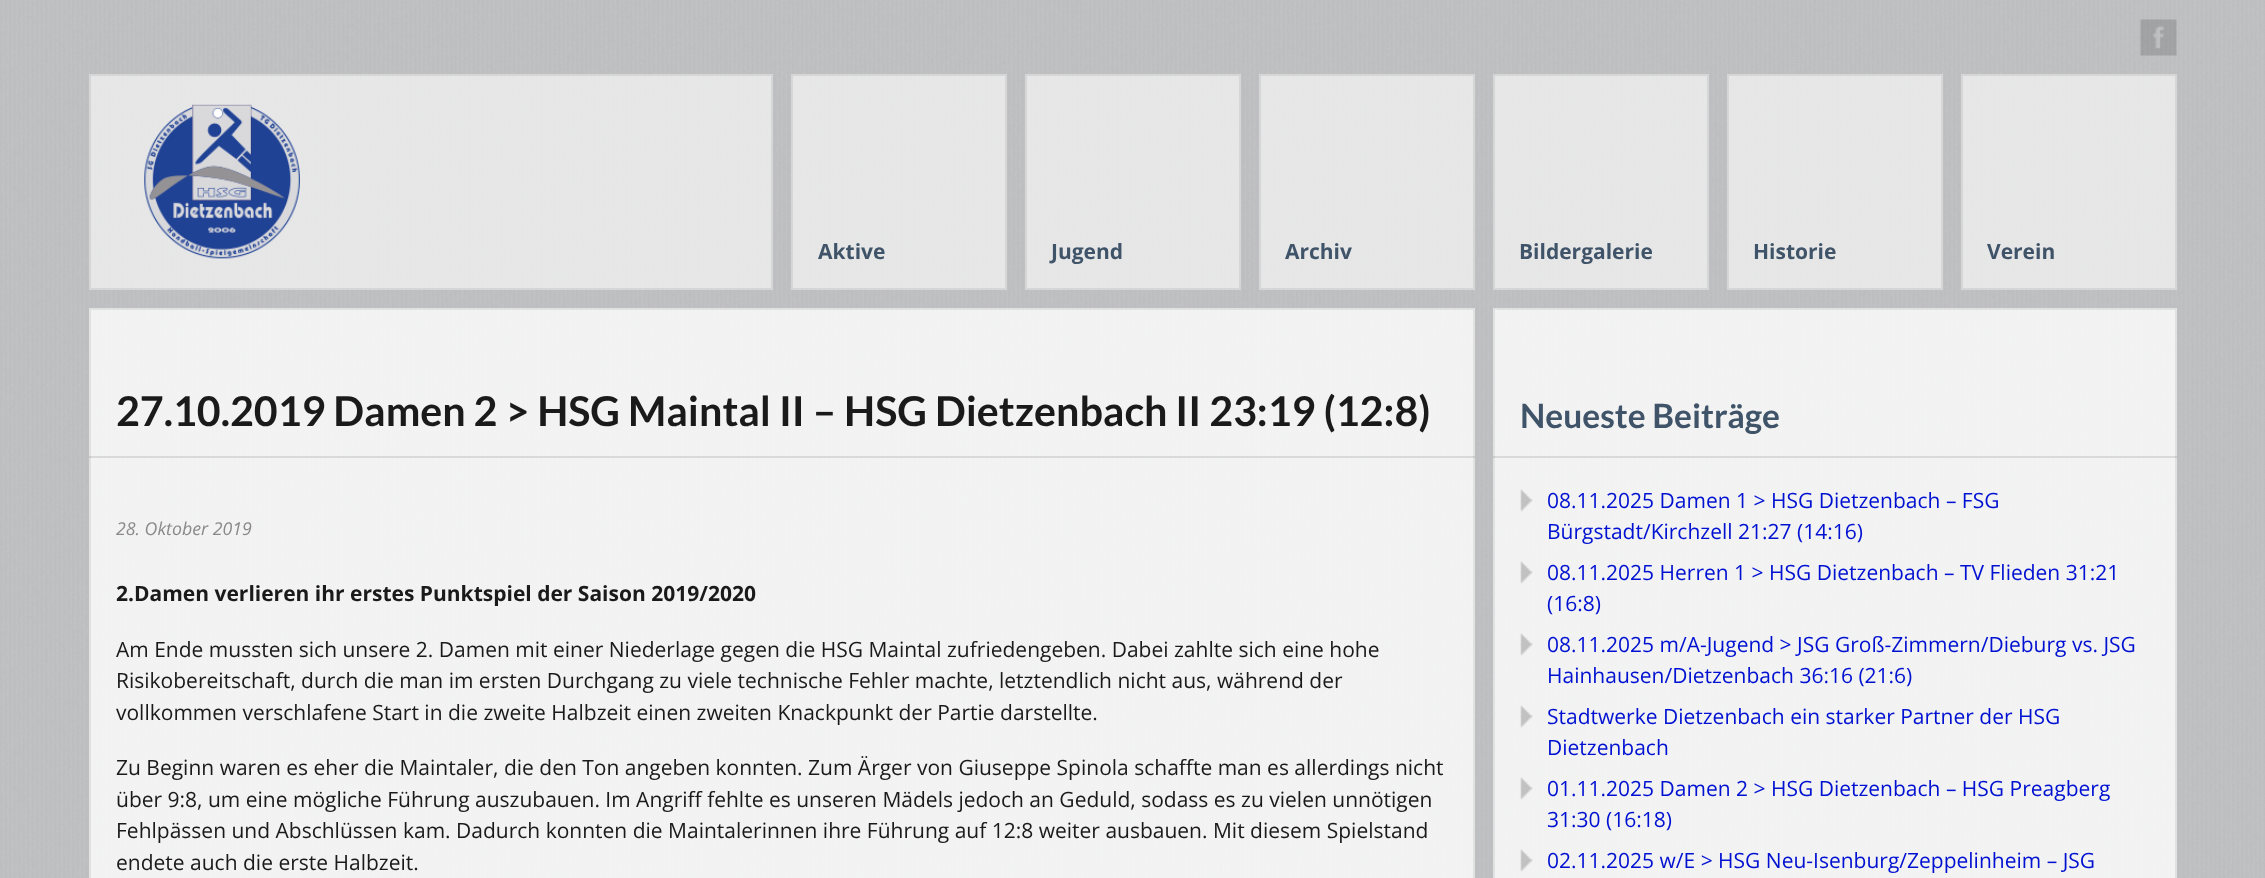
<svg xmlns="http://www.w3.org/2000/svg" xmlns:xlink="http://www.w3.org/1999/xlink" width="2265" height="878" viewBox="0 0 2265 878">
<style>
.cls-1{font:bold 21px Open Sans;fill:#405469}
.cls-2{font:bold 41.15px Lato;fill:#1a1a1a}
.cls-3{font:italic 17.75px Open Sans;fill:#8a8a8a}
.cls-4{font:bold 21px Open Sans;fill:#1a1a1a}
.cls-5{font:21px Open Sans;fill:#1a1a1a}
.cls-6{font:bold 33.5px Lato;fill:#405469}
.cls-7{font:21px Open Sans;fill:#0011d1}
</style>
<rect width="100%" height="100%" fill="#ffffff"/>
<image xlink:href="image0.png" x="0" y="0" width="2265" height="878"/>
<image xlink:href="image1.png" x="2140" y="19" width="37" height="37"/>
<rect fill="#f0f0f0" fill-opacity="0.8" stroke="#d6d6d7" stroke-width="2" x="90" y="75" width="682" height="214"/>
<image xlink:href="image2.png" x="144" y="104" width="156" height="155"/>
<rect fill="#f0f0f0" fill-opacity="0.8" stroke="#d6d6d7" stroke-width="2" x="792" y="75" width="214" height="214"/>
<rect fill="#f0f0f0" fill-opacity="0.8" stroke="#d6d6d7" stroke-width="2" x="1026" y="75" width="214" height="214"/>
<rect fill="#f0f0f0" fill-opacity="0.8" stroke="#d6d6d7" stroke-width="2" x="1260" y="75" width="214" height="214"/>
<rect fill="#f0f0f0" fill-opacity="0.8" stroke="#d6d6d7" stroke-width="2" x="1494" y="75" width="214" height="214"/>
<rect fill="#f0f0f0" fill-opacity="0.8" stroke="#d6d6d7" stroke-width="2" x="1728" y="75" width="214" height="214"/>
<rect fill="#f0f0f0" fill-opacity="0.8" stroke="#d6d6d7" stroke-width="2" x="1962" y="75" width="214" height="214"/>
<rect fill="#ffffff" fill-opacity="0.8" stroke="#e1e1e2" stroke-width="2" x="90" y="309" width="1384" height="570"/>
<rect fill="#000000" fill-opacity="0.1" x="89" y="456" width="1386" height="2"/>
<rect fill="#ffffff" fill-opacity="0.8" stroke="#e1e1e2" stroke-width="2" x="1494" y="309" width="682" height="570"/>
<rect fill="#000000" fill-opacity="0.1" x="1493" y="456" width="684" height="2"/>
<image xlink:href="image3.png" x="1520" y="489" width="13" height="23"/>
<image xlink:href="image4.png" x="1520" y="561" width="13" height="23"/>
<image xlink:href="image5.png" x="1520" y="633" width="13" height="23"/>
<image xlink:href="image6.png" x="1520" y="705" width="13" height="23"/>
<image xlink:href="image7.png" x="1520" y="777" width="13" height="23"/>
<image xlink:href="image8.png" x="1520" y="849" width="13" height="23"/>
<text class="cls-1" x="818" y="259">Aktive</text>
<text class="cls-1" x="1051" y="259">Jugend</text>
<text class="cls-1" x="1285" y="259">Archiv</text>
<text class="cls-1" x="1519" y="259">Bildergalerie</text>
<text class="cls-1" x="1753" y="259">Historie</text>
<text class="cls-1" x="1987" y="259">Verein</text>
<text class="cls-2" x="116" y="426">27.10.2019 Damen 2 &gt; HSG Maintal II – HSG Dietzenbach II 23:19 (12:8)</text>
<text class="cls-3" x="116" y="535">28. Oktober 2019</text>
<text class="cls-4" x="116" y="601">2.Damen verlieren ihr erstes Punktspiel der Saison 2019/2020</text>
<text class="cls-5"><tspan x="116" y="657">Am Ende mussten sich unsere 2. Damen mit einer Niederlage gegen die HSG Maintal zufriedengeben. Dabei zahlte sich eine hohe</tspan><tspan x="116" y="688">Risikobereitschaft, durch die man im ersten Durchgang zu viele technische Fehler machte, letztendlich nicht aus, während der</tspan><tspan x="116" y="720">vollkommen verschlafene Start in die zweite Halbzeit einen zweiten Knackpunkt der Partie darstellte.</tspan></text>
<text class="cls-5"><tspan x="116" y="775">Zu Beginn waren es eher die Maintaler, die den Ton angeben konnten. Zum Ärger von Giuseppe Spinola schaffte man es allerdings nicht</tspan><tspan x="116" y="807">über 9:8, um eine mögliche Führung auszubauen. Im Angriff fehlte es unseren Mädels jedoch an Geduld, sodass es zu vielen unnötigen</tspan><tspan x="116" y="838">Fehlpässen und Abschlüssen kam. Dadurch konnten die Maintalerinnen ihre Führung auf 12:8 weiter ausbauen. Mit diesem Spielstand</tspan><tspan x="116" y="870">endete auch die erste Halbzeit.</tspan></text>
<text class="cls-6" x="1520" y="428">Neueste Beiträge</text>
<text class="cls-7"><tspan x="1547" y="508">08.11.2025 Damen 1 &gt; HSG Dietzenbach – FSG</tspan><tspan x="1547" y="539">Bürgstadt/Kirchzell 21:27 (14:16)</tspan><tspan x="1547" y="580">08.11.2025 Herren 1 &gt; HSG Dietzenbach – TV Flieden 31:21</tspan><tspan x="1547" y="611">(16:8)</tspan><tspan x="1547" y="652">08.11.2025 m/A-Jugend &gt; JSG Groß-Zimmern/Dieburg vs. JSG</tspan><tspan x="1547" y="683">Hainhausen/Dietzenbach 36:16 (21:6)</tspan><tspan x="1547" y="724">Stadtwerke Dietzenbach ein starker Partner der HSG</tspan><tspan x="1547" y="755">Dietzenbach</tspan><tspan x="1547" y="796">01.11.2025 Damen 2 &gt; HSG Dietzenbach – HSG Preagberg</tspan><tspan x="1547" y="827">31:30 (16:18)</tspan><tspan x="1547" y="868">02.11.2025 w/E &gt; HSG Neu-Isenburg/Zeppelinheim – JSG</tspan></text>
</svg>
